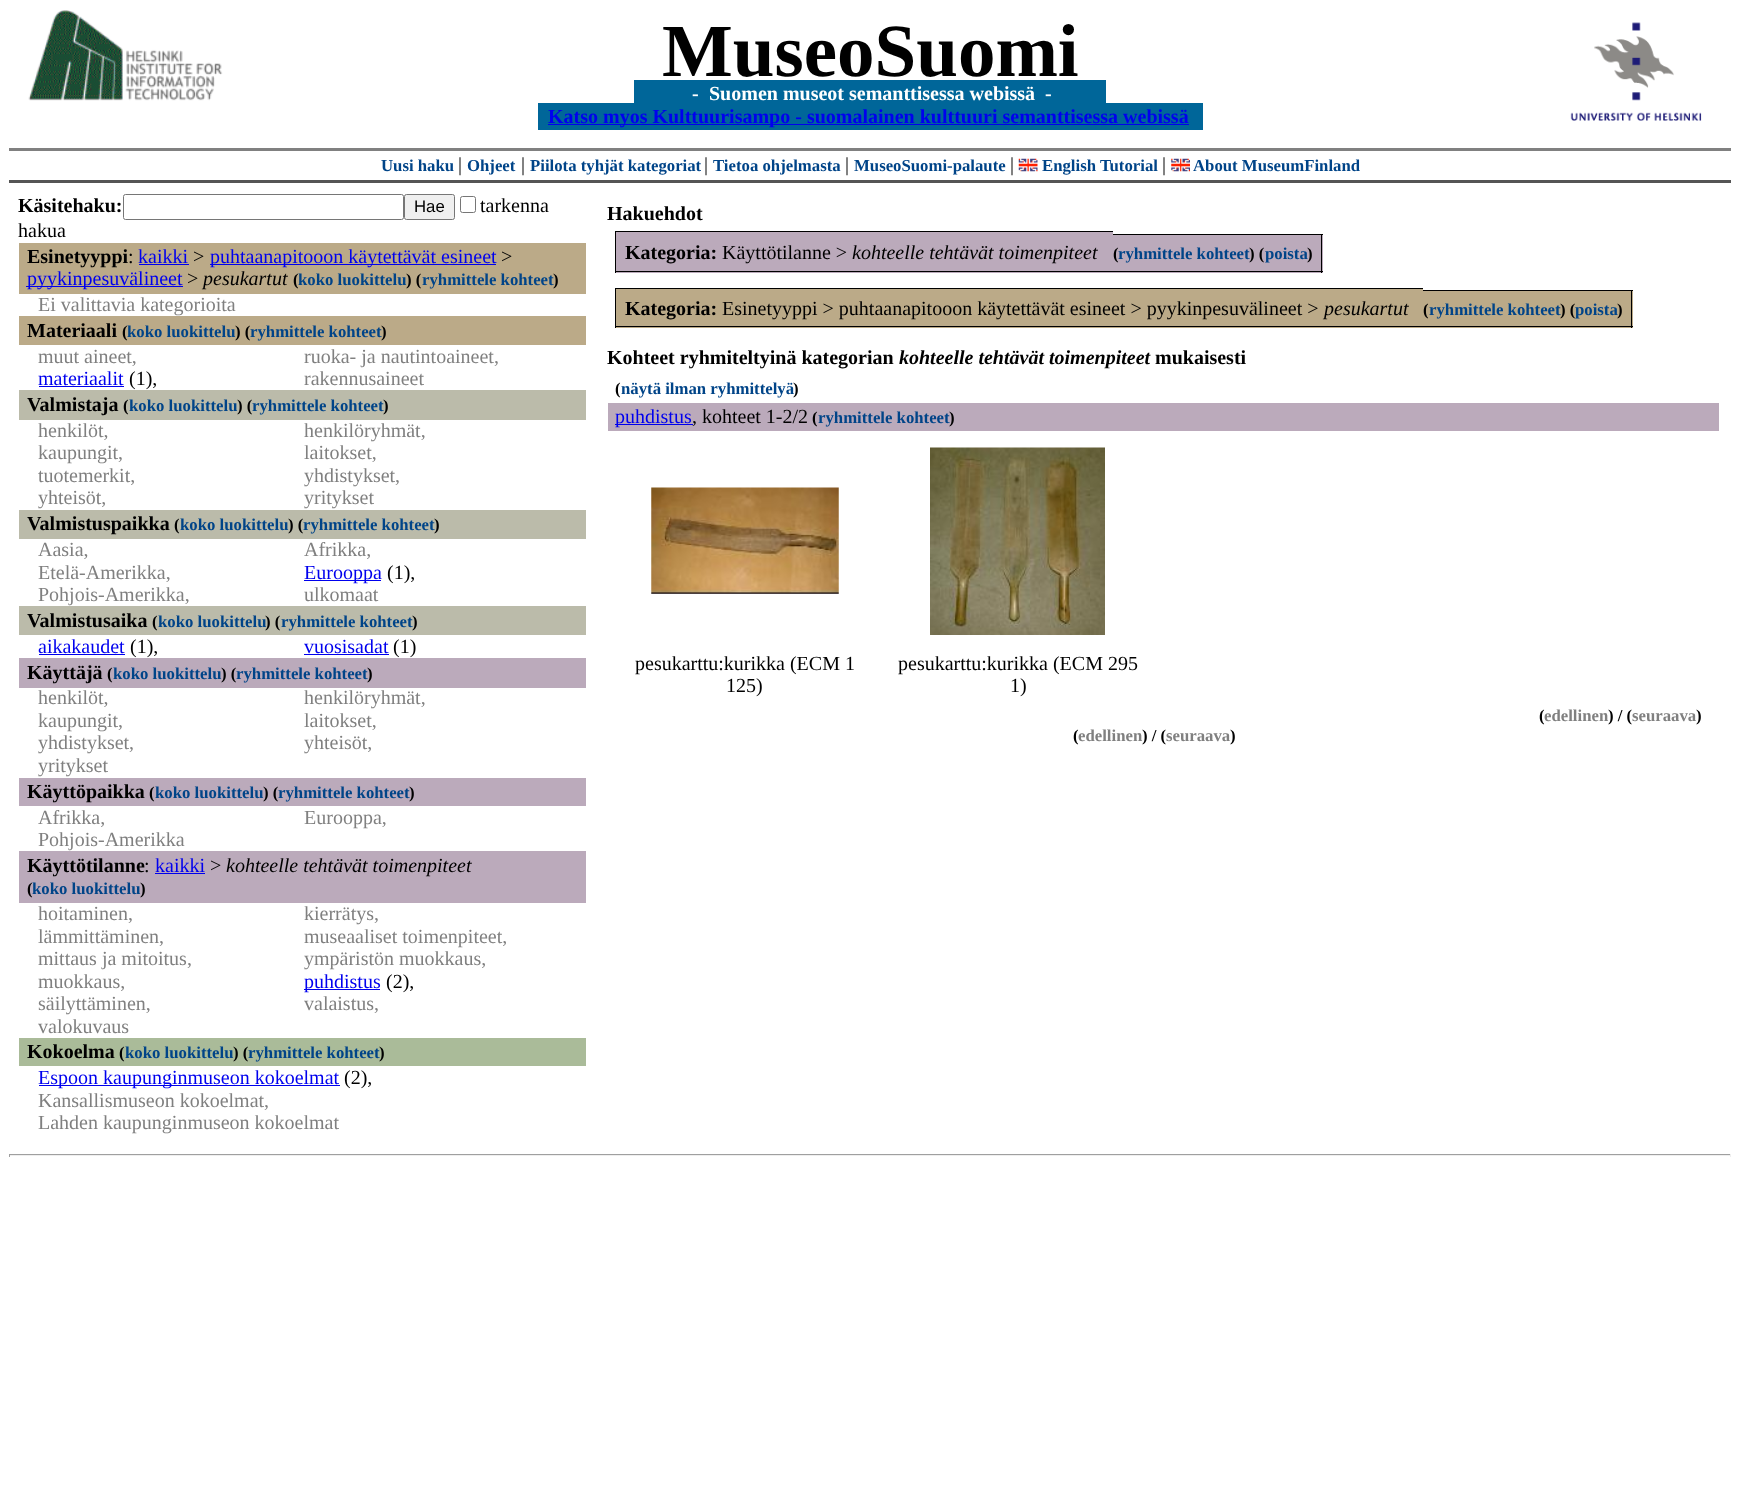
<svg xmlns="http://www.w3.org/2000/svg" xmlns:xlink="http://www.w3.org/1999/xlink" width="1740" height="1510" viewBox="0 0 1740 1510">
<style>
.cls-1{font:bold 75px Liberation Serif;fill:#000000}
.cls-2{font:bold 20px Liberation Serif;fill:#ffffff}
.cls-3{font:bold 20px Liberation Serif;fill:#0000ee}
.cls-4{font:bold 16.75px Liberation Serif;fill:#004488}
.cls-5{font:20px Liberation Serif;fill:#000000}
.cls-6{font:bold 20px Liberation Serif;fill:#000000}
.cls-7{font:16.75px Liberation Sans;fill:#000000}
.cls-8{font:20px Liberation Serif;fill:#0000ee}
.cls-9{font:italic 20px Liberation Serif;fill:#000000}
.cls-10{font:bold 16.75px Liberation Serif;fill:#000000}
.cls-11{font:20px Liberation Serif;fill:#808080}
.cls-12{font:italic bold 20px Liberation Serif;fill:#000000}
.cls-13{font:bold 16.75px Liberation Serif;fill:#808080}
</style>
<rect width="100%" height="100%" fill="#ffffff"/>
<image xlink:href="image0.png" x="28" y="10" width="195" height="91"/>
<image xlink:href="image1.png" x="1570" y="22" width="132" height="99"/>
<rect fill="#006699" x="634" y="80" width="472" height="23"/>
<rect fill="#006699" x="538" y="103" width="665" height="27"/>
<rect fill="#0000ee" x="548" y="124" width="641" height="1"/>
<rect fill="#808080" x="9" y="148" width="1722" height="3"/>
<rect fill="#555555" x="9" y="180" width="1722" height="3"/>
<image xlink:href="image2.png" x="1018" y="158" width="20" height="14"/>
<image xlink:href="image3.png" x="1171" y="158" width="19" height="14"/>
<rect fill="none" stroke="#767676" x="123.5" y="194.5" width="280" height="25" rx="2"/>
<rect fill="#efefef" stroke="#767676" x="404.5" y="194.5" width="50" height="25" rx="2"/>
<rect fill="none" stroke="#767676" x="460.5" y="196.5" width="15" height="16" rx="2"/>
<rect fill="#bbaa88" x="19" y="243" width="567" height="51"/>
<rect fill="#0000ee" x="139" y="264" width="50" height="1"/>
<rect fill="#0000ee" x="210" y="264" width="286" height="1"/>
<rect fill="#0000ee" x="26" y="286" width="157" height="1"/>
<rect fill="#bbaa88" x="19" y="316" width="567" height="29"/>
<rect fill="#0000ee" x="39" y="386" width="85" height="1"/>
<rect fill="#bbbbaa" x="19" y="390" width="567" height="30"/>
<rect fill="#bbbbaa" x="19" y="510" width="567" height="29"/>
<rect fill="#0000ee" x="304" y="580" width="77" height="1"/>
<rect fill="#bbbbaa" x="19" y="606" width="567" height="29"/>
<rect fill="#0000ee" x="39" y="654" width="86" height="1"/>
<rect fill="#0000ee" x="304" y="654" width="85" height="1"/>
<rect fill="#bbaabb" x="19" y="658" width="567" height="30"/>
<rect fill="#bbaabb" x="19" y="778" width="567" height="28"/>
<rect fill="#bbaabb" x="19" y="851" width="567" height="52"/>
<rect fill="#0000ee" x="155" y="873" width="50" height="1"/>
<rect fill="#0000ee" x="304" y="989" width="76" height="1"/>
<rect fill="#aabb99" x="19" y="1038" width="567" height="28"/>
<rect fill="#0000ee" x="39" y="1085" width="301" height="1"/>
<rect fill="#bbaabb" x="616" y="232" width="497" height="41"/>
<rect fill="#000000" x="615" y="231" width="498" height="1"/>
<rect fill="#000000" x="615" y="271" width="498" height="1"/>
<rect fill="#000000" x="615" y="231" width="1" height="42"/>
<rect fill="#bbaabb" x="1113" y="234" width="6" height="39"/>
<rect fill="#000000" x="1113" y="234" width="146" height="1"/>
<rect fill="#000000" x="1113" y="271" width="6" height="1"/>
<rect fill="#bbaabb" x="1119" y="235" width="140" height="38"/>
<rect fill="#000000" x="1119" y="271" width="140" height="1"/>
<rect fill="#bbaabb" x="1259" y="234" width="6" height="39"/>
<rect fill="#000000" x="1259" y="234" width="64" height="1"/>
<rect fill="#000000" x="1259" y="271" width="6" height="1"/>
<rect fill="#bbaabb" x="1265" y="235" width="58" height="38"/>
<rect fill="#000000" x="1265" y="271" width="43" height="1"/>
<rect fill="#000000" x="1321" y="234" width="1" height="39"/>
<rect fill="#000000" x="1308" y="271" width="15" height="1"/>
<rect fill="#bbaa88" x="616" y="289" width="807" height="39"/>
<rect fill="#000000" x="615" y="288" width="808" height="1"/>
<rect fill="#000000" x="615" y="326" width="808" height="1"/>
<rect fill="#000000" x="615" y="288" width="1" height="40"/>
<rect fill="#bbaa88" x="1423" y="290" width="6" height="38"/>
<rect fill="#000000" x="1423" y="290" width="146" height="1"/>
<rect fill="#000000" x="1423" y="326" width="6" height="1"/>
<rect fill="#bbaa88" x="1429" y="291" width="140" height="37"/>
<rect fill="#000000" x="1429" y="326" width="140" height="1"/>
<rect fill="#bbaa88" x="1569" y="290" width="6" height="38"/>
<rect fill="#000000" x="1569" y="290" width="64" height="1"/>
<rect fill="#000000" x="1569" y="326" width="6" height="1"/>
<rect fill="#bbaa88" x="1575" y="291" width="58" height="37"/>
<rect fill="#000000" x="1575" y="326" width="43" height="1"/>
<rect fill="#000000" x="1631" y="290" width="1" height="38"/>
<rect fill="#000000" x="1618" y="326" width="15" height="1"/>
<rect fill="#bbaabb" x="608" y="403" width="1111" height="28"/>
<rect fill="#0000ee" x="615" y="424" width="78" height="1"/>
<image xlink:href="image4.png" x="651" y="487" width="188" height="107"/>
<image xlink:href="image5.png" x="930" y="447" width="175" height="188"/>
<rect fill="#9f9f9f" x="9" y="1154" width="1722" height="1"/>
<rect fill="#eeeeee" x="1730" y="1154" width="1" height="3"/>
<rect fill="#eeeeee" x="9" y="1155" width="1722" height="1"/>
<rect fill="#9f9f9f" x="9" y="1154" width="1" height="3"/>
<text class="cls-1" x="662" y="76">MuseoSuomi</text>
<text class="cls-2" x="692" y="100">-</text>
<text class="cls-2" x="709" y="100">Suomen museot semanttisessa webissä</text>
<text class="cls-2" x="1045" y="100">-</text>
<text class="cls-3" x="548" y="123">Katso myos Kulttuurisampo - suomalainen kulttuuri semanttisessa webissä</text>
<text class="cls-4" x="381" y="171">Uusi haku</text>
<text class="cls-5" x="458" y="171">|</text>
<text class="cls-4" x="467" y="171">Ohjeet</text>
<text class="cls-5" x="521" y="171">|</text>
<text class="cls-4" x="530" y="171">Piilota tyhjät kategoriat</text>
<text class="cls-5" x="704" y="171">|</text>
<text class="cls-4" x="713" y="171">Tietoa ohjelmasta</text>
<text class="cls-5" x="845" y="171">|</text>
<text class="cls-4" x="854" y="171">MuseoSuomi-palaute</text>
<text class="cls-5" x="1010" y="171">|</text>
<text class="cls-4" x="1042" y="171">English Tutorial</text>
<text class="cls-5" x="1162" y="171">|</text>
<text class="cls-4" x="1193" y="171">About MuseumFinland</text>
<text class="cls-6" x="18" y="212">Käsitehaku:</text>
<text class="cls-7" x="414" y="212">Hae</text>
<text class="cls-5" x="480" y="212">tarkenna</text>
<text class="cls-5" x="18" y="237">hakua</text>
<text class="cls-6" x="27" y="263">Esinetyyppi</text>
<text class="cls-5" x="128" y="263">:</text>
<text class="cls-8" x="138" y="263">kaikki</text>
<text class="cls-5" x="193" y="263">&gt;</text>
<text class="cls-8" x="210" y="263">puhtaanapitooon käytettävät esineet</text>
<text class="cls-5" x="501" y="263">&gt;</text>
<text class="cls-8" x="27" y="285">pyykinpesuvälineet</text>
<text class="cls-5" x="187" y="285">&gt;</text>
<text class="cls-9" x="203" y="285">pesukartut</text>
<text class="cls-10" x="293" y="285">(</text>
<text class="cls-4" x="298" y="285">koko luokittelu</text>
<text class="cls-10" x="406" y="285">) (</text>
<text class="cls-4" x="422" y="285">ryhmittele kohteet</text>
<text class="cls-10" x="553" y="285">)</text>
<text class="cls-11" x="38" y="311">Ei valittavia kategorioita</text>
<text class="cls-6" x="27" y="337">Materiaali</text>
<text class="cls-10" x="122" y="337">(</text>
<text class="cls-4" x="127" y="337">koko luokittelu</text>
<text class="cls-10" x="235" y="337">) (</text>
<text class="cls-4" x="250" y="337">ryhmittele kohteet</text>
<text class="cls-10" x="381" y="337">)</text>
<text class="cls-11" x="38" y="363">muut aineet,</text>
<text class="cls-11" x="304" y="363">ruoka- ja nautintoaineet,</text>
<text class="cls-8" x="38" y="385">materiaalit</text>
<text class="cls-5" x="129" y="385">(1),</text>
<text class="cls-11" x="304" y="385">rakennusaineet</text>
<text class="cls-6" x="27" y="411">Valmistaja</text>
<text class="cls-10" x="123" y="411">(</text>
<text class="cls-4" x="129" y="411">koko luokittelu</text>
<text class="cls-10" x="237" y="411">) (</text>
<text class="cls-4" x="252" y="411">ryhmittele kohteet</text>
<text class="cls-10" x="383" y="411">)</text>
<text class="cls-11" x="38" y="437">henkilöt,</text>
<text class="cls-11" x="304" y="437">henkilöryhmät,</text>
<text class="cls-11" x="38" y="459">kaupungit,</text>
<text class="cls-11" x="304" y="459">laitokset,</text>
<text class="cls-11" x="38" y="482">tuotemerkit,</text>
<text class="cls-11" x="304" y="482">yhdistykset,</text>
<text class="cls-11" x="38" y="504">yhteisöt,</text>
<text class="cls-11" x="304" y="504">yritykset</text>
<text class="cls-6" x="27" y="530">Valmistuspaikka</text>
<text class="cls-10" x="174" y="530">(</text>
<text class="cls-4" x="180" y="530">koko luokittelu</text>
<text class="cls-10" x="288" y="530">) (</text>
<text class="cls-4" x="303" y="530">ryhmittele kohteet</text>
<text class="cls-10" x="434" y="530">)</text>
<text class="cls-11" x="38" y="556">Aasia,</text>
<text class="cls-11" x="304" y="556">Afrikka,</text>
<text class="cls-11" x="38" y="579">Etelä-Amerikka,</text>
<text class="cls-8" x="304" y="579">Eurooppa</text>
<text class="cls-5" x="387" y="579">(1),</text>
<text class="cls-11" x="38" y="601">Pohjois-Amerikka,</text>
<text class="cls-11" x="304" y="601">ulkomaat</text>
<text class="cls-6" x="27" y="627">Valmistusaika</text>
<text class="cls-10" x="152" y="627">(</text>
<text class="cls-4" x="158" y="627">koko luokittelu</text>
<text class="cls-10" x="265" y="627">) (</text>
<text class="cls-4" x="281" y="627">ryhmittele kohteet</text>
<text class="cls-10" x="412" y="627">)</text>
<text class="cls-8" x="38" y="653">aikakaudet</text>
<text class="cls-5" x="130" y="653">(1),</text>
<text class="cls-8" x="304" y="653">vuosisadat</text>
<text class="cls-5" x="393" y="653">(1)</text>
<text class="cls-6" x="27" y="679">Käyttäjä</text>
<text class="cls-10" x="107" y="679">(</text>
<text class="cls-4" x="113" y="679">koko luokittelu</text>
<text class="cls-10" x="221" y="679">) (</text>
<text class="cls-4" x="236" y="679">ryhmittele kohteet</text>
<text class="cls-10" x="367" y="679">)</text>
<text class="cls-11" x="38" y="704">henkilöt,</text>
<text class="cls-11" x="304" y="704">henkilöryhmät,</text>
<text class="cls-11" x="38" y="727">kaupungit,</text>
<text class="cls-11" x="304" y="727">laitokset,</text>
<text class="cls-11" x="38" y="749">yhdistykset,</text>
<text class="cls-11" x="304" y="749">yhteisöt,</text>
<text class="cls-11" x="38" y="772">yritykset</text>
<text class="cls-6" x="27" y="798">Käyttöpaikka</text>
<text class="cls-10" x="149" y="798">(</text>
<text class="cls-4" x="155" y="798">koko luokittelu</text>
<text class="cls-10" x="263" y="798">) (</text>
<text class="cls-4" x="278" y="798">ryhmittele kohteet</text>
<text class="cls-10" x="409" y="798">)</text>
<text class="cls-11" x="38" y="824">Afrikka,</text>
<text class="cls-11" x="304" y="824">Eurooppa,</text>
<text class="cls-11" x="38" y="846">Pohjois-Amerikka</text>
<text class="cls-6" x="27" y="872">Käyttötilanne</text>
<text class="cls-5" x="144" y="872">:</text>
<text class="cls-8" x="155" y="872">kaikki</text>
<text class="cls-5" x="210" y="872">&gt;</text>
<text class="cls-9" x="226" y="872">kohteelle tehtävät toimenpiteet</text>
<text class="cls-10" x="27" y="894">(</text>
<text class="cls-4" x="32" y="894">koko luokittelu</text>
<text class="cls-10" x="140" y="894">)</text>
<text class="cls-11" x="38" y="920">hoitaminen,</text>
<text class="cls-11" x="304" y="920">kierrätys,</text>
<text class="cls-11" x="38" y="943">lämmittäminen,</text>
<text class="cls-11" x="304" y="943">museaaliset toimenpiteet,</text>
<text class="cls-11" x="38" y="965">mittaus ja mitoitus,</text>
<text class="cls-11" x="304" y="965">ympäristön muokkaus,</text>
<text class="cls-11" x="38" y="988">muokkaus,</text>
<text class="cls-8" x="304" y="988">puhdistus</text>
<text class="cls-5" x="386" y="988">(2),</text>
<text class="cls-11" x="38" y="1010">säilyttäminen,</text>
<text class="cls-11" x="304" y="1010">valaistus,</text>
<text class="cls-11" x="38" y="1033">valokuvaus</text>
<text class="cls-6" x="27" y="1058">Kokoelma</text>
<text class="cls-10" x="119" y="1058">(</text>
<text class="cls-4" x="125" y="1058">koko luokittelu</text>
<text class="cls-10" x="233" y="1058">) (</text>
<text class="cls-4" x="248" y="1058">ryhmittele kohteet</text>
<text class="cls-10" x="379" y="1058">)</text>
<text class="cls-8" x="38" y="1084">Espoon kaupunginmuseon kokoelmat</text>
<text class="cls-5" x="344" y="1084">(2),</text>
<text class="cls-11"><tspan x="38" y="1107">Kansallismuseon kokoelmat,</tspan><tspan x="38" y="1129">Lahden kaupunginmuseon kokoelmat</tspan></text>
<text class="cls-6" x="607" y="220">Hakuehdot</text>
<text class="cls-6" x="625" y="259">Kategoria:</text>
<text class="cls-5" x="722" y="259">Käyttötilanne &gt;</text>
<text class="cls-9" x="852" y="259">kohteelle tehtävät toimenpiteet</text>
<text class="cls-10" x="1113" y="259">(</text>
<text class="cls-4" x="1118" y="259">ryhmittele kohteet</text>
<text class="cls-10" x="1249" y="259">) (</text>
<text class="cls-4" x="1265" y="259">poista</text>
<text class="cls-10" x="1307" y="259">)</text>
<text class="cls-6" x="625" y="315">Kategoria:</text>
<text class="cls-5" x="722" y="315">Esinetyyppi &gt; puhtaanapitooon käytettävät esineet &gt; pyykinpesuvälineet &gt;</text>
<text class="cls-9" x="1324" y="315">pesukartut</text>
<text class="cls-10" x="1423" y="315">(</text>
<text class="cls-4" x="1429" y="315">ryhmittele kohteet</text>
<text class="cls-10" x="1560" y="315">) (</text>
<text class="cls-4" x="1575" y="315">poista</text>
<text class="cls-10" x="1617" y="315">)</text>
<text class="cls-6" x="607" y="364">Kohteet ryhmiteltyinä kategorian</text>
<text class="cls-12" x="899" y="364">kohteelle tehtävät toimenpiteet</text>
<text class="cls-6" x="1155" y="364">mukaisesti</text>
<text class="cls-10" x="615" y="394">(</text>
<text class="cls-4" x="621" y="394">näytä ilman ryhmittelyä</text>
<text class="cls-10" x="793" y="394">)</text>
<text class="cls-8" x="615" y="423">puhdistus</text>
<text class="cls-5" x="692" y="423">, kohteet 1-2/2</text>
<text class="cls-10" x="812" y="423">(</text>
<text class="cls-4" x="818" y="423">ryhmittele kohteet</text>
<text class="cls-10" x="949" y="423">)</text>
<text class="cls-5" x="635" y="670">pesukarttu:kurikka (ECM 1</text>
<text class="cls-5" x="726" y="692">125)</text>
<text class="cls-5" x="898" y="670">pesukarttu:kurikka (ECM 295</text>
<text class="cls-5" x="1010" y="692">1)</text>
<text class="cls-10" x="1539" y="721">(</text>
<text class="cls-13" x="1544" y="721">edellinen</text>
<text class="cls-10" x="1608" y="721">) / (</text>
<text class="cls-13" x="1632" y="721">seuraava</text>
<text class="cls-10" x="1696" y="721">)</text>
<text class="cls-10" x="1073" y="741">(</text>
<text class="cls-13" x="1078" y="741">edellinen</text>
<text class="cls-10" x="1142" y="741">) / (</text>
<text class="cls-13" x="1166" y="741">seuraava</text>
<text class="cls-10" x="1230" y="741">)</text>
</svg>
